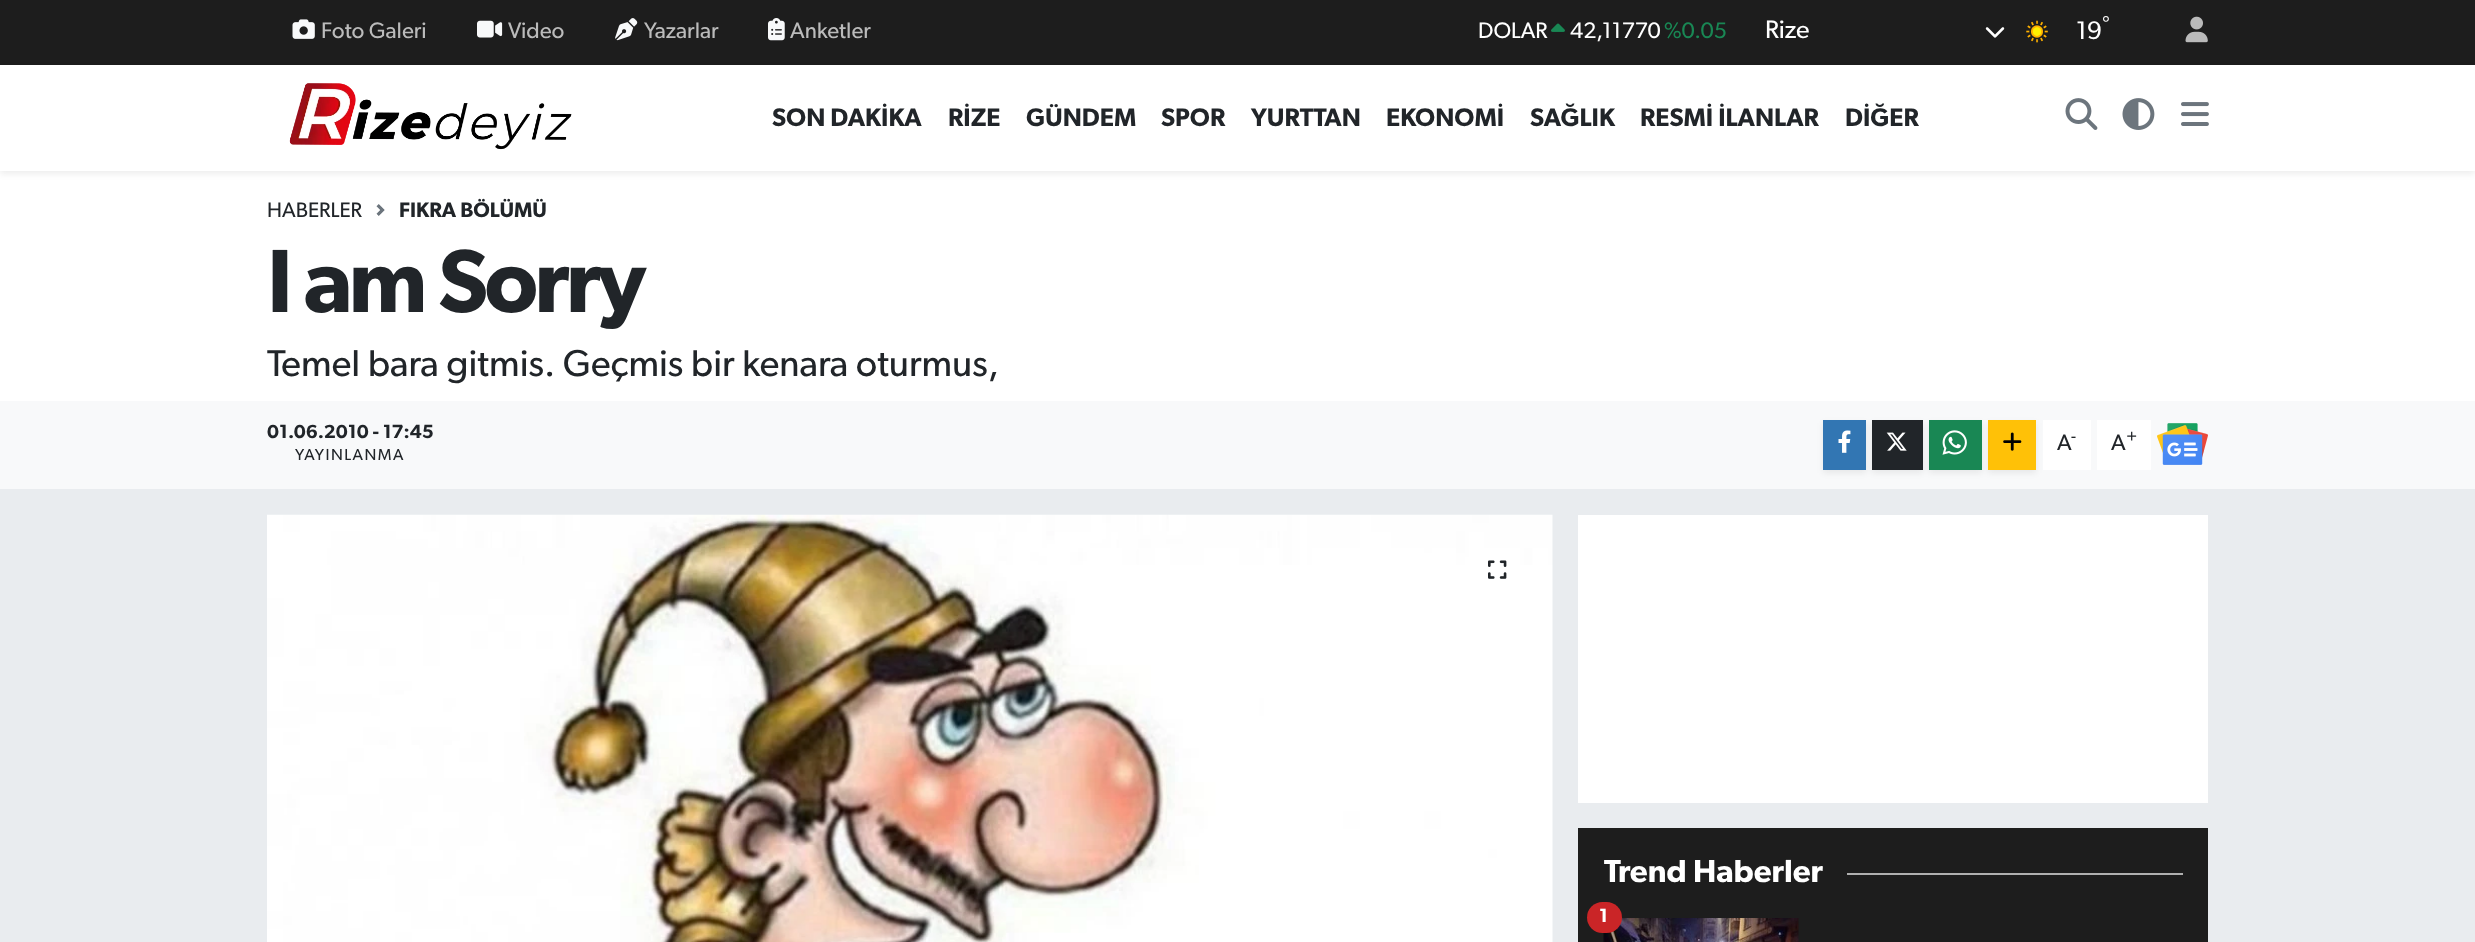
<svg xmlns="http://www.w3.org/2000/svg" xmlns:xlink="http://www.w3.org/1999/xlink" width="2475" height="942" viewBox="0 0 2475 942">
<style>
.cls-1{font:22.5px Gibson;fill:#bbbbbb}
.cls-2{font:22.5px Gibson;fill:#ffffff}
.cls-3{font:22.5px Gibson;fill:#198754}
.cls-4{font:25.5px Gibson;fill:#ffffff}
.cls-5{font:19.1px Gibson;fill:#ffffff}
.cls-6{font:600 25.5px Gibson;fill:#212529}
.cls-7{font:21px Gibson;fill:#212529}
.cls-8{font:600 21px Gibson;fill:#212529}
.cls-9{font:600 90px Gibson;letter-spacing:-3.5px;fill:#212529}
.cls-10{font:37.5px Gibson;fill:#212529}
.cls-11{font:600 19.1px Gibson;fill:#212529}
.cls-12{font:16px Gibson;letter-spacing:1.5px;fill:#212529}
.cls-13{font:22.5px Gibson;fill:#212529}
.cls-14{font:17px Gibson;fill:#212529}
.cls-15{font:600 32px Gibson;fill:#ffffff}
.cls-16{font:600 19.1px Gibson;fill:#ffffff}
</style>
<rect width="100%" height="100%" fill="#e9ecef"/>
<rect fill="#1d1d1d" x="0" y="0" width="2475" height="65"/>
<image xlink:href="image0.png" x="292" y="19" width="23" height="20"/>
<image xlink:href="image1.png" x="477" y="20" width="26" height="18"/>
<image xlink:href="image2.png" x="615" y="18" width="23" height="23"/>
<image xlink:href="image3.png" x="768" y="18" width="17" height="23"/>
<image xlink:href="image4.png" x="1551" y="23" width="14" height="9"/>
<image xlink:href="image5.png" x="1985" y="27" width="20" height="11"/>
<image xlink:href="image6.png" x="2026" y="20" width="22" height="23"/>
<image xlink:href="image7.png" x="2185" y="16" width="23" height="27"/>
<rect fill="#ffffff" x="0" y="171" width="2475" height="230"/>
<rect fill="#000000" fill-opacity="0.07" filter="blur(3px)" x="0" y="68" width="2475" height="106"/>
<rect fill="#ffffff" x="0" y="65" width="2475" height="106"/>
<image xlink:href="image8.png" x="289" y="83" width="283" height="67"/>
<image xlink:href="image9.png" x="2065" y="98" width="33" height="32"/>
<image xlink:href="image10.png" x="2122" y="98" width="33" height="32"/>
<image xlink:href="image11.png" x="2181" y="102" width="28" height="24"/>
<image xlink:href="image12.png" x="376" y="204" width="9" height="12"/>
<rect fill="#f8f9fa" x="0" y="401" width="2475" height="88"/>
<rect fill="#000000" fill-opacity="0.07" filter="blur(3px)" x="1823" y="423" width="43" height="50"/>
<rect fill="#3276b3" x="1823" y="420" width="43" height="50"/>
<image xlink:href="image13.png" x="1838" y="430" width="13" height="23"/>
<rect fill="#000000" fill-opacity="0.07" filter="blur(3px)" x="1872" y="423" width="51" height="50"/>
<rect fill="#212529" x="1872" y="420" width="51" height="50"/>
<image xlink:href="image14.png" x="1886" y="432" width="21" height="19"/>
<rect fill="#000000" fill-opacity="0.07" filter="blur(3px)" x="1929" y="423" width="53" height="50"/>
<rect fill="#198754" x="1929" y="420" width="53" height="50"/>
<image xlink:href="image15.png" x="1942" y="430" width="25" height="25"/>
<rect fill="#ffffff" x="2043" y="420" width="48" height="50"/>
<rect fill="#000000" fill-opacity="0.07" filter="blur(3px)" x="1988" y="423" width="48" height="50"/>
<rect fill="#ffc107" x="1988" y="420" width="48" height="50"/>
<image xlink:href="image16.png" x="2003" y="432" width="19" height="19"/>
<rect fill="#ffffff" x="2097" y="420" width="54" height="50"/>
<image xlink:href="image17.png" x="2157" y="423" width="51" height="42"/>
<image xlink:href="image18.png" x="267" y="514" width="1286" height="428"/>
<image xlink:href="image19.png" x="1488" y="560" width="19" height="19"/>
<rect fill="#ffffff" x="1578" y="515" width="630" height="288"/>
<rect fill="#1d1d1d" x="1578" y="828" width="630" height="114"/>
<rect fill="#b0b0b0" x="1847" y="873" width="336" height="2"/>
<image xlink:href="image20.png" x="1603" y="918" width="196" height="24"/>
<rect fill="#ca2527" x="1587" y="902" width="35" height="31" rx="15.5"/>
<text class="cls-1" x="321" y="38">Foto Galeri</text>
<text class="cls-1" x="508" y="38">Video</text>
<text class="cls-1" x="644" y="38">Yazarlar</text>
<text class="cls-1" x="790" y="38">Anketler</text>
<text class="cls-2" x="1478" y="38">DOLAR</text>
<text class="cls-2" x="1570" y="38">42,11770</text>
<text class="cls-3" x="1664" y="38">%0.05</text>
<text class="cls-4" x="1765" y="38">Rize</text>
<text class="cls-5" x="2102" y="30">°</text>
<text class="cls-4" x="2076" y="39">19</text>
<text class="cls-6" x="772" y="126">SON DAKİKA</text>
<text class="cls-6" x="948" y="126">RİZE</text>
<text class="cls-6" x="1026" y="126">GÜNDEM</text>
<text class="cls-6" x="1161" y="126">SPOR</text>
<text class="cls-6" x="1251" y="126">YURTTAN</text>
<text class="cls-6" x="1386" y="126">EKONOMİ</text>
<text class="cls-6" x="1530" y="126">SAĞLIK</text>
<text class="cls-6" x="1640" y="126">RESMİ İLANLAR</text>
<text class="cls-6" x="1845" y="126">DİĞER</text>
<text class="cls-7" x="267" y="217">HABERLER</text>
<text class="cls-8" x="399" y="217">FIKRA BÖLÜMÜ</text>
<text class="cls-9" x="267" y="312">I am Sorry</text>
<text class="cls-10" x="267" y="376">Temel bara gitmis. Geçmis bir kenara oturmus,</text>
<text class="cls-11" x="267" y="438">01.06.2010 - 17:45</text>
<text class="cls-12" x="295" y="460">YAYINLANMA</text>
<text class="cls-13" x="2057" y="450">A</text>
<text class="cls-14" x="2071" y="442">-</text>
<text class="cls-13" x="2111" y="450">A</text>
<text class="cls-14" x="2126" y="442">+</text>
<text class="cls-15" x="1604" y="882">Trend Haberler</text>
<text class="cls-16" x="1599" y="922">1</text>
</svg>
